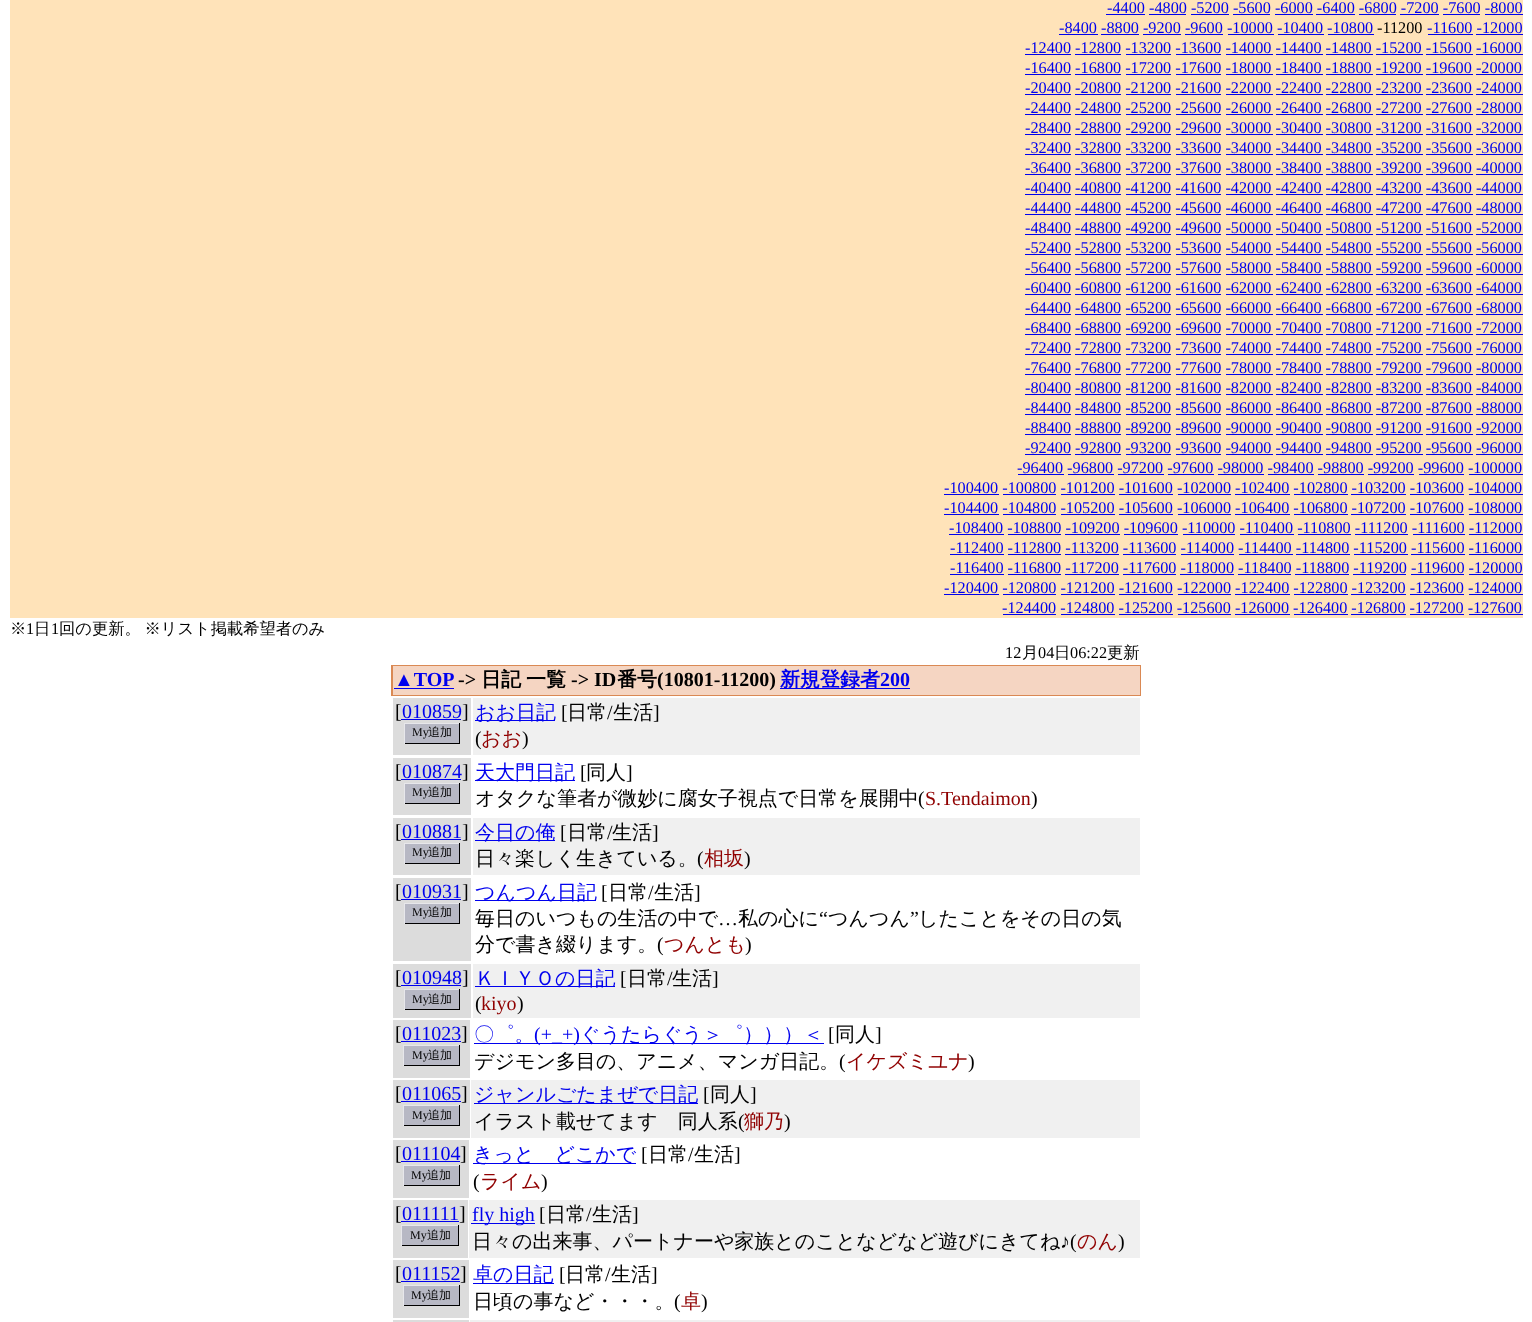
<svg xmlns="http://www.w3.org/2000/svg" xmlns:xlink="http://www.w3.org/1999/xlink" width="1532" height="1322" viewBox="0 0 1532 1322">
<style>
.cls-1{font:16.25px Liberation Serif;fill:#0000ee}
.cls-2{font:16.25px Liberation Serif;fill:#000000}
.cls-3{font:500 16.25px WenQuanYi Zen Hei;fill:#000000}
.cls-4{font:bold 20px Liberation Serif;fill:#0000ee}
.cls-5{font:bold 20px Liberation Serif;fill:#000000}
.cls-6{font:bold 20px WenQuanYi Zen Hei;fill:#000000}
.cls-7{font:bold 20px WenQuanYi Zen Hei;fill:#0000ee}
.cls-8{font:20px Liberation Serif;fill:#000000}
.cls-9{font:20px Liberation Serif;fill:#0000ee}
.cls-10{font:12px Liberation Serif;fill:#000000}
.cls-11{font:500 12px WenQuanYi Zen Hei;fill:#000000}
.cls-12{font:500 20px WenQuanYi Zen Hei;fill:#0000ee}
.cls-13{font:500 20px WenQuanYi Zen Hei;fill:#000000}
.cls-14{font:500 20px WenQuanYi Zen Hei;fill:#900000}
.cls-15{font:20px Liberation Serif;fill:#900000}
</style>
<rect width="100%" height="100%" fill="#ffffff"/>
<rect fill="#ffe3b9" x="10" y="0" width="1513" height="618"/>
<rect fill="#0000ee" x="1106" y="14" width="39" height="1"/>
<rect fill="#0000ee" x="1149" y="14" width="37" height="1"/>
<rect fill="#0000ee" x="1191" y="14" width="38" height="1"/>
<rect fill="#0000ee" x="1233" y="14" width="37" height="1"/>
<rect fill="#0000ee" x="1275" y="14" width="38" height="1"/>
<rect fill="#0000ee" x="1316" y="14" width="39" height="1"/>
<rect fill="#0000ee" x="1359" y="14" width="37" height="1"/>
<rect fill="#0000ee" x="1400" y="14" width="39" height="1"/>
<rect fill="#0000ee" x="1443" y="14" width="37" height="1"/>
<rect fill="#0000ee" x="1485" y="14" width="38" height="1"/>
<rect fill="#0000ee" x="1059" y="34" width="39" height="1"/>
<rect fill="#0000ee" x="1101" y="34" width="38" height="1"/>
<rect fill="#0000ee" x="1143" y="34" width="38" height="1"/>
<rect fill="#0000ee" x="1185" y="34" width="38" height="1"/>
<rect fill="#0000ee" x="1228" y="34" width="46" height="1"/>
<rect fill="#0000ee" x="1278" y="34" width="46" height="1"/>
<rect fill="#0000ee" x="1328" y="34" width="46" height="1"/>
<rect fill="#0000ee" x="1428" y="34" width="45" height="1"/>
<rect fill="#0000ee" x="1476" y="34" width="47" height="1"/>
<rect fill="#0000ee" x="1025" y="54" width="46" height="1"/>
<rect fill="#0000ee" x="1075" y="54" width="46" height="1"/>
<rect fill="#0000ee" x="1126" y="54" width="45" height="1"/>
<rect fill="#0000ee" x="1176" y="54" width="45" height="1"/>
<rect fill="#0000ee" x="1226" y="54" width="47" height="1"/>
<rect fill="#0000ee" x="1276" y="54" width="47" height="1"/>
<rect fill="#0000ee" x="1326" y="54" width="47" height="1"/>
<rect fill="#0000ee" x="1376" y="54" width="47" height="1"/>
<rect fill="#0000ee" x="1426" y="54" width="47" height="1"/>
<rect fill="#0000ee" x="1476" y="54" width="47" height="1"/>
<rect fill="#0000ee" x="1025" y="74" width="46" height="1"/>
<rect fill="#0000ee" x="1075" y="74" width="46" height="1"/>
<rect fill="#0000ee" x="1126" y="74" width="45" height="1"/>
<rect fill="#0000ee" x="1176" y="74" width="45" height="1"/>
<rect fill="#0000ee" x="1226" y="74" width="47" height="1"/>
<rect fill="#0000ee" x="1276" y="74" width="47" height="1"/>
<rect fill="#0000ee" x="1326" y="74" width="47" height="1"/>
<rect fill="#0000ee" x="1376" y="74" width="47" height="1"/>
<rect fill="#0000ee" x="1426" y="74" width="47" height="1"/>
<rect fill="#0000ee" x="1476" y="74" width="47" height="1"/>
<rect fill="#0000ee" x="1025" y="94" width="46" height="1"/>
<rect fill="#0000ee" x="1075" y="94" width="46" height="1"/>
<rect fill="#0000ee" x="1126" y="94" width="45" height="1"/>
<rect fill="#0000ee" x="1176" y="94" width="45" height="1"/>
<rect fill="#0000ee" x="1226" y="94" width="47" height="1"/>
<rect fill="#0000ee" x="1276" y="94" width="47" height="1"/>
<rect fill="#0000ee" x="1326" y="94" width="47" height="1"/>
<rect fill="#0000ee" x="1376" y="94" width="47" height="1"/>
<rect fill="#0000ee" x="1426" y="94" width="47" height="1"/>
<rect fill="#0000ee" x="1476" y="94" width="47" height="1"/>
<rect fill="#0000ee" x="1025" y="114" width="46" height="1"/>
<rect fill="#0000ee" x="1075" y="114" width="46" height="1"/>
<rect fill="#0000ee" x="1126" y="114" width="45" height="1"/>
<rect fill="#0000ee" x="1176" y="114" width="45" height="1"/>
<rect fill="#0000ee" x="1226" y="114" width="47" height="1"/>
<rect fill="#0000ee" x="1276" y="114" width="47" height="1"/>
<rect fill="#0000ee" x="1326" y="114" width="47" height="1"/>
<rect fill="#0000ee" x="1376" y="114" width="47" height="1"/>
<rect fill="#0000ee" x="1426" y="114" width="47" height="1"/>
<rect fill="#0000ee" x="1476" y="114" width="47" height="1"/>
<rect fill="#0000ee" x="1025" y="134" width="46" height="1"/>
<rect fill="#0000ee" x="1075" y="134" width="46" height="1"/>
<rect fill="#0000ee" x="1126" y="134" width="45" height="1"/>
<rect fill="#0000ee" x="1176" y="134" width="45" height="1"/>
<rect fill="#0000ee" x="1226" y="134" width="47" height="1"/>
<rect fill="#0000ee" x="1276" y="134" width="47" height="1"/>
<rect fill="#0000ee" x="1326" y="134" width="47" height="1"/>
<rect fill="#0000ee" x="1376" y="134" width="47" height="1"/>
<rect fill="#0000ee" x="1426" y="134" width="47" height="1"/>
<rect fill="#0000ee" x="1476" y="134" width="47" height="1"/>
<rect fill="#0000ee" x="1025" y="154" width="46" height="1"/>
<rect fill="#0000ee" x="1075" y="154" width="46" height="1"/>
<rect fill="#0000ee" x="1126" y="154" width="45" height="1"/>
<rect fill="#0000ee" x="1176" y="154" width="45" height="1"/>
<rect fill="#0000ee" x="1226" y="154" width="47" height="1"/>
<rect fill="#0000ee" x="1276" y="154" width="47" height="1"/>
<rect fill="#0000ee" x="1326" y="154" width="47" height="1"/>
<rect fill="#0000ee" x="1376" y="154" width="47" height="1"/>
<rect fill="#0000ee" x="1426" y="154" width="47" height="1"/>
<rect fill="#0000ee" x="1476" y="154" width="47" height="1"/>
<rect fill="#0000ee" x="1025" y="174" width="46" height="1"/>
<rect fill="#0000ee" x="1075" y="174" width="46" height="1"/>
<rect fill="#0000ee" x="1126" y="174" width="45" height="1"/>
<rect fill="#0000ee" x="1176" y="174" width="45" height="1"/>
<rect fill="#0000ee" x="1226" y="174" width="47" height="1"/>
<rect fill="#0000ee" x="1276" y="174" width="47" height="1"/>
<rect fill="#0000ee" x="1326" y="174" width="47" height="1"/>
<rect fill="#0000ee" x="1376" y="174" width="47" height="1"/>
<rect fill="#0000ee" x="1426" y="174" width="47" height="1"/>
<rect fill="#0000ee" x="1476" y="174" width="47" height="1"/>
<rect fill="#0000ee" x="1025" y="194" width="46" height="1"/>
<rect fill="#0000ee" x="1075" y="194" width="46" height="1"/>
<rect fill="#0000ee" x="1126" y="194" width="45" height="1"/>
<rect fill="#0000ee" x="1176" y="194" width="45" height="1"/>
<rect fill="#0000ee" x="1226" y="194" width="47" height="1"/>
<rect fill="#0000ee" x="1276" y="194" width="47" height="1"/>
<rect fill="#0000ee" x="1326" y="194" width="47" height="1"/>
<rect fill="#0000ee" x="1376" y="194" width="47" height="1"/>
<rect fill="#0000ee" x="1426" y="194" width="47" height="1"/>
<rect fill="#0000ee" x="1476" y="194" width="47" height="1"/>
<rect fill="#0000ee" x="1025" y="214" width="46" height="1"/>
<rect fill="#0000ee" x="1075" y="214" width="46" height="1"/>
<rect fill="#0000ee" x="1126" y="214" width="45" height="1"/>
<rect fill="#0000ee" x="1176" y="214" width="45" height="1"/>
<rect fill="#0000ee" x="1226" y="214" width="47" height="1"/>
<rect fill="#0000ee" x="1276" y="214" width="47" height="1"/>
<rect fill="#0000ee" x="1326" y="214" width="47" height="1"/>
<rect fill="#0000ee" x="1376" y="214" width="47" height="1"/>
<rect fill="#0000ee" x="1426" y="214" width="47" height="1"/>
<rect fill="#0000ee" x="1476" y="214" width="47" height="1"/>
<rect fill="#0000ee" x="1025" y="234" width="46" height="1"/>
<rect fill="#0000ee" x="1075" y="234" width="46" height="1"/>
<rect fill="#0000ee" x="1126" y="234" width="45" height="1"/>
<rect fill="#0000ee" x="1176" y="234" width="45" height="1"/>
<rect fill="#0000ee" x="1226" y="234" width="47" height="1"/>
<rect fill="#0000ee" x="1276" y="234" width="47" height="1"/>
<rect fill="#0000ee" x="1326" y="234" width="47" height="1"/>
<rect fill="#0000ee" x="1376" y="234" width="47" height="1"/>
<rect fill="#0000ee" x="1426" y="234" width="47" height="1"/>
<rect fill="#0000ee" x="1476" y="234" width="47" height="1"/>
<rect fill="#0000ee" x="1025" y="254" width="46" height="1"/>
<rect fill="#0000ee" x="1075" y="254" width="46" height="1"/>
<rect fill="#0000ee" x="1126" y="254" width="45" height="1"/>
<rect fill="#0000ee" x="1176" y="254" width="45" height="1"/>
<rect fill="#0000ee" x="1226" y="254" width="47" height="1"/>
<rect fill="#0000ee" x="1276" y="254" width="47" height="1"/>
<rect fill="#0000ee" x="1326" y="254" width="47" height="1"/>
<rect fill="#0000ee" x="1376" y="254" width="47" height="1"/>
<rect fill="#0000ee" x="1426" y="254" width="47" height="1"/>
<rect fill="#0000ee" x="1476" y="254" width="47" height="1"/>
<rect fill="#0000ee" x="1025" y="274" width="46" height="1"/>
<rect fill="#0000ee" x="1075" y="274" width="46" height="1"/>
<rect fill="#0000ee" x="1126" y="274" width="45" height="1"/>
<rect fill="#0000ee" x="1176" y="274" width="45" height="1"/>
<rect fill="#0000ee" x="1226" y="274" width="47" height="1"/>
<rect fill="#0000ee" x="1276" y="274" width="47" height="1"/>
<rect fill="#0000ee" x="1326" y="274" width="47" height="1"/>
<rect fill="#0000ee" x="1376" y="274" width="47" height="1"/>
<rect fill="#0000ee" x="1426" y="274" width="47" height="1"/>
<rect fill="#0000ee" x="1476" y="274" width="47" height="1"/>
<rect fill="#0000ee" x="1025" y="294" width="46" height="1"/>
<rect fill="#0000ee" x="1075" y="294" width="46" height="1"/>
<rect fill="#0000ee" x="1126" y="294" width="45" height="1"/>
<rect fill="#0000ee" x="1176" y="294" width="45" height="1"/>
<rect fill="#0000ee" x="1226" y="294" width="47" height="1"/>
<rect fill="#0000ee" x="1276" y="294" width="47" height="1"/>
<rect fill="#0000ee" x="1326" y="294" width="47" height="1"/>
<rect fill="#0000ee" x="1376" y="294" width="47" height="1"/>
<rect fill="#0000ee" x="1426" y="294" width="47" height="1"/>
<rect fill="#0000ee" x="1476" y="294" width="47" height="1"/>
<rect fill="#0000ee" x="1025" y="314" width="46" height="1"/>
<rect fill="#0000ee" x="1075" y="314" width="46" height="1"/>
<rect fill="#0000ee" x="1126" y="314" width="45" height="1"/>
<rect fill="#0000ee" x="1176" y="314" width="45" height="1"/>
<rect fill="#0000ee" x="1226" y="314" width="47" height="1"/>
<rect fill="#0000ee" x="1276" y="314" width="47" height="1"/>
<rect fill="#0000ee" x="1326" y="314" width="47" height="1"/>
<rect fill="#0000ee" x="1376" y="314" width="47" height="1"/>
<rect fill="#0000ee" x="1426" y="314" width="47" height="1"/>
<rect fill="#0000ee" x="1476" y="314" width="47" height="1"/>
<rect fill="#0000ee" x="1025" y="334" width="46" height="1"/>
<rect fill="#0000ee" x="1075" y="334" width="46" height="1"/>
<rect fill="#0000ee" x="1126" y="334" width="45" height="1"/>
<rect fill="#0000ee" x="1176" y="334" width="45" height="1"/>
<rect fill="#0000ee" x="1226" y="334" width="47" height="1"/>
<rect fill="#0000ee" x="1276" y="334" width="47" height="1"/>
<rect fill="#0000ee" x="1326" y="334" width="47" height="1"/>
<rect fill="#0000ee" x="1376" y="334" width="47" height="1"/>
<rect fill="#0000ee" x="1426" y="334" width="47" height="1"/>
<rect fill="#0000ee" x="1476" y="334" width="47" height="1"/>
<rect fill="#0000ee" x="1025" y="354" width="46" height="1"/>
<rect fill="#0000ee" x="1075" y="354" width="46" height="1"/>
<rect fill="#0000ee" x="1126" y="354" width="45" height="1"/>
<rect fill="#0000ee" x="1176" y="354" width="45" height="1"/>
<rect fill="#0000ee" x="1226" y="354" width="47" height="1"/>
<rect fill="#0000ee" x="1276" y="354" width="47" height="1"/>
<rect fill="#0000ee" x="1326" y="354" width="47" height="1"/>
<rect fill="#0000ee" x="1376" y="354" width="47" height="1"/>
<rect fill="#0000ee" x="1426" y="354" width="47" height="1"/>
<rect fill="#0000ee" x="1476" y="354" width="47" height="1"/>
<rect fill="#0000ee" x="1025" y="374" width="46" height="1"/>
<rect fill="#0000ee" x="1075" y="374" width="46" height="1"/>
<rect fill="#0000ee" x="1126" y="374" width="45" height="1"/>
<rect fill="#0000ee" x="1176" y="374" width="45" height="1"/>
<rect fill="#0000ee" x="1226" y="374" width="47" height="1"/>
<rect fill="#0000ee" x="1276" y="374" width="47" height="1"/>
<rect fill="#0000ee" x="1326" y="374" width="47" height="1"/>
<rect fill="#0000ee" x="1376" y="374" width="47" height="1"/>
<rect fill="#0000ee" x="1426" y="374" width="47" height="1"/>
<rect fill="#0000ee" x="1476" y="374" width="47" height="1"/>
<rect fill="#0000ee" x="1025" y="394" width="46" height="1"/>
<rect fill="#0000ee" x="1075" y="394" width="46" height="1"/>
<rect fill="#0000ee" x="1126" y="394" width="45" height="1"/>
<rect fill="#0000ee" x="1176" y="394" width="45" height="1"/>
<rect fill="#0000ee" x="1226" y="394" width="47" height="1"/>
<rect fill="#0000ee" x="1276" y="394" width="47" height="1"/>
<rect fill="#0000ee" x="1326" y="394" width="47" height="1"/>
<rect fill="#0000ee" x="1376" y="394" width="47" height="1"/>
<rect fill="#0000ee" x="1426" y="394" width="47" height="1"/>
<rect fill="#0000ee" x="1476" y="394" width="47" height="1"/>
<rect fill="#0000ee" x="1025" y="414" width="46" height="1"/>
<rect fill="#0000ee" x="1075" y="414" width="46" height="1"/>
<rect fill="#0000ee" x="1126" y="414" width="45" height="1"/>
<rect fill="#0000ee" x="1176" y="414" width="45" height="1"/>
<rect fill="#0000ee" x="1226" y="414" width="47" height="1"/>
<rect fill="#0000ee" x="1276" y="414" width="47" height="1"/>
<rect fill="#0000ee" x="1326" y="414" width="47" height="1"/>
<rect fill="#0000ee" x="1376" y="414" width="47" height="1"/>
<rect fill="#0000ee" x="1426" y="414" width="47" height="1"/>
<rect fill="#0000ee" x="1476" y="414" width="47" height="1"/>
<rect fill="#0000ee" x="1025" y="434" width="46" height="1"/>
<rect fill="#0000ee" x="1075" y="434" width="46" height="1"/>
<rect fill="#0000ee" x="1126" y="434" width="45" height="1"/>
<rect fill="#0000ee" x="1176" y="434" width="45" height="1"/>
<rect fill="#0000ee" x="1226" y="434" width="47" height="1"/>
<rect fill="#0000ee" x="1276" y="434" width="47" height="1"/>
<rect fill="#0000ee" x="1326" y="434" width="47" height="1"/>
<rect fill="#0000ee" x="1376" y="434" width="47" height="1"/>
<rect fill="#0000ee" x="1426" y="434" width="47" height="1"/>
<rect fill="#0000ee" x="1476" y="434" width="47" height="1"/>
<rect fill="#0000ee" x="1025" y="454" width="46" height="1"/>
<rect fill="#0000ee" x="1075" y="454" width="46" height="1"/>
<rect fill="#0000ee" x="1126" y="454" width="45" height="1"/>
<rect fill="#0000ee" x="1176" y="454" width="45" height="1"/>
<rect fill="#0000ee" x="1226" y="454" width="47" height="1"/>
<rect fill="#0000ee" x="1276" y="454" width="47" height="1"/>
<rect fill="#0000ee" x="1326" y="454" width="47" height="1"/>
<rect fill="#0000ee" x="1376" y="454" width="47" height="1"/>
<rect fill="#0000ee" x="1426" y="454" width="47" height="1"/>
<rect fill="#0000ee" x="1476" y="454" width="47" height="1"/>
<rect fill="#0000ee" x="1018" y="474" width="46" height="1"/>
<rect fill="#0000ee" x="1068" y="474" width="46" height="1"/>
<rect fill="#0000ee" x="1118" y="474" width="46" height="1"/>
<rect fill="#0000ee" x="1168" y="474" width="46" height="1"/>
<rect fill="#0000ee" x="1218" y="474" width="46" height="1"/>
<rect fill="#0000ee" x="1268" y="474" width="46" height="1"/>
<rect fill="#0000ee" x="1318" y="474" width="46" height="1"/>
<rect fill="#0000ee" x="1368" y="474" width="46" height="1"/>
<rect fill="#0000ee" x="1419" y="474" width="45" height="1"/>
<rect fill="#0000ee" x="1469" y="474" width="54" height="1"/>
<rect fill="#0000ee" x="944" y="494" width="55" height="1"/>
<rect fill="#0000ee" x="1003" y="494" width="53" height="1"/>
<rect fill="#0000ee" x="1061" y="494" width="54" height="1"/>
<rect fill="#0000ee" x="1119" y="494" width="54" height="1"/>
<rect fill="#0000ee" x="1178" y="494" width="53" height="1"/>
<rect fill="#0000ee" x="1235" y="494" width="55" height="1"/>
<rect fill="#0000ee" x="1294" y="494" width="54" height="1"/>
<rect fill="#0000ee" x="1351" y="494" width="55" height="1"/>
<rect fill="#0000ee" x="1410" y="494" width="54" height="1"/>
<rect fill="#0000ee" x="1469" y="494" width="54" height="1"/>
<rect fill="#0000ee" x="944" y="514" width="55" height="1"/>
<rect fill="#0000ee" x="1003" y="514" width="53" height="1"/>
<rect fill="#0000ee" x="1061" y="514" width="54" height="1"/>
<rect fill="#0000ee" x="1119" y="514" width="54" height="1"/>
<rect fill="#0000ee" x="1178" y="514" width="53" height="1"/>
<rect fill="#0000ee" x="1235" y="514" width="55" height="1"/>
<rect fill="#0000ee" x="1294" y="514" width="54" height="1"/>
<rect fill="#0000ee" x="1351" y="514" width="55" height="1"/>
<rect fill="#0000ee" x="1410" y="514" width="54" height="1"/>
<rect fill="#0000ee" x="1469" y="514" width="54" height="1"/>
<rect fill="#0000ee" x="949" y="534" width="55" height="1"/>
<rect fill="#0000ee" x="1008" y="534" width="53" height="1"/>
<rect fill="#0000ee" x="1065" y="534" width="55" height="1"/>
<rect fill="#0000ee" x="1124" y="534" width="54" height="1"/>
<rect fill="#0000ee" x="1183" y="534" width="52" height="1"/>
<rect fill="#0000ee" x="1240" y="534" width="54" height="1"/>
<rect fill="#0000ee" x="1298" y="534" width="53" height="1"/>
<rect fill="#0000ee" x="1355" y="534" width="53" height="1"/>
<rect fill="#0000ee" x="1413" y="534" width="52" height="1"/>
<rect fill="#0000ee" x="1469" y="534" width="54" height="1"/>
<rect fill="#0000ee" x="950" y="554" width="54" height="1"/>
<rect fill="#0000ee" x="1008" y="554" width="53" height="1"/>
<rect fill="#0000ee" x="1065" y="554" width="54" height="1"/>
<rect fill="#0000ee" x="1123" y="554" width="53" height="1"/>
<rect fill="#0000ee" x="1181" y="554" width="53" height="1"/>
<rect fill="#0000ee" x="1239" y="554" width="54" height="1"/>
<rect fill="#0000ee" x="1296" y="554" width="54" height="1"/>
<rect fill="#0000ee" x="1354" y="554" width="54" height="1"/>
<rect fill="#0000ee" x="1411" y="554" width="54" height="1"/>
<rect fill="#0000ee" x="1469" y="554" width="54" height="1"/>
<rect fill="#0000ee" x="950" y="574" width="54" height="1"/>
<rect fill="#0000ee" x="1008" y="574" width="53" height="1"/>
<rect fill="#0000ee" x="1065" y="574" width="54" height="1"/>
<rect fill="#0000ee" x="1123" y="574" width="53" height="1"/>
<rect fill="#0000ee" x="1180" y="574" width="54" height="1"/>
<rect fill="#0000ee" x="1238" y="574" width="53" height="1"/>
<rect fill="#0000ee" x="1295" y="574" width="54" height="1"/>
<rect fill="#0000ee" x="1353" y="574" width="53" height="1"/>
<rect fill="#0000ee" x="1411" y="574" width="53" height="1"/>
<rect fill="#0000ee" x="1469" y="574" width="54" height="1"/>
<rect fill="#0000ee" x="944" y="594" width="55" height="1"/>
<rect fill="#0000ee" x="1003" y="594" width="53" height="1"/>
<rect fill="#0000ee" x="1061" y="594" width="54" height="1"/>
<rect fill="#0000ee" x="1119" y="594" width="54" height="1"/>
<rect fill="#0000ee" x="1178" y="594" width="53" height="1"/>
<rect fill="#0000ee" x="1235" y="594" width="55" height="1"/>
<rect fill="#0000ee" x="1294" y="594" width="54" height="1"/>
<rect fill="#0000ee" x="1351" y="594" width="55" height="1"/>
<rect fill="#0000ee" x="1410" y="594" width="54" height="1"/>
<rect fill="#0000ee" x="1469" y="594" width="54" height="1"/>
<rect fill="#0000ee" x="1003" y="614" width="53" height="1"/>
<rect fill="#0000ee" x="1061" y="614" width="54" height="1"/>
<rect fill="#0000ee" x="1119" y="614" width="54" height="1"/>
<rect fill="#0000ee" x="1178" y="614" width="53" height="1"/>
<rect fill="#0000ee" x="1235" y="614" width="55" height="1"/>
<rect fill="#0000ee" x="1294" y="614" width="54" height="1"/>
<rect fill="#0000ee" x="1351" y="614" width="55" height="1"/>
<rect fill="#0000ee" x="1410" y="614" width="54" height="1"/>
<rect fill="#0000ee" x="1469" y="614" width="54" height="1"/>
<rect fill="#da8954" x="391" y="665" width="750" height="31"/>
<rect fill="#f5d5c2" x="393" y="666" width="747" height="29"/>
<rect fill="#0000ee" x="394" y="688" width="60" height="1"/>
<rect fill="#0000ee" x="780" y="688" width="130" height="1"/>
<rect fill="#dcdcdc" x="393" y="698" width="78" height="57"/>
<rect fill="#0000ee" x="401" y="719" width="60" height="1"/>
<rect fill="#b7b8c4" x="405" y="724" width="54" height="19"/>
<rect fill="#e7e7eb" x="404" y="723" width="56" height="1"/>
<rect fill="#000000" x="459" y="723" width="1" height="21"/>
<rect fill="#000000" x="404" y="743" width="56" height="1"/>
<rect fill="#e7e7eb" x="404" y="723" width="1" height="21"/>
<rect fill="#f0f0f0" x="473" y="698" width="667" height="57"/>
<rect fill="#0000ee" x="475" y="720" width="80" height="1"/>
<rect fill="#dcdcdc" x="393" y="758" width="78" height="57"/>
<rect fill="#0000ee" x="401" y="779" width="60" height="1"/>
<rect fill="#b7b8c4" x="405" y="784" width="54" height="19"/>
<rect fill="#e7e7eb" x="404" y="783" width="56" height="1"/>
<rect fill="#000000" x="459" y="783" width="1" height="21"/>
<rect fill="#000000" x="404" y="803" width="56" height="1"/>
<rect fill="#e7e7eb" x="404" y="783" width="1" height="21"/>
<rect fill="#0000ee" x="475" y="780" width="100" height="1"/>
<rect fill="#dcdcdc" x="393" y="818" width="78" height="57"/>
<rect fill="#0000ee" x="401" y="839" width="60" height="1"/>
<rect fill="#b7b8c4" x="405" y="844" width="54" height="19"/>
<rect fill="#e7e7eb" x="404" y="843" width="56" height="1"/>
<rect fill="#000000" x="459" y="843" width="1" height="21"/>
<rect fill="#000000" x="404" y="863" width="56" height="1"/>
<rect fill="#e7e7eb" x="404" y="843" width="1" height="21"/>
<rect fill="#f0f0f0" x="473" y="818" width="667" height="57"/>
<rect fill="#0000ee" x="475" y="840" width="80" height="1"/>
<rect fill="#dcdcdc" x="393" y="878" width="78" height="83"/>
<rect fill="#0000ee" x="401" y="899" width="60" height="1"/>
<rect fill="#b7b8c4" x="405" y="904" width="54" height="19"/>
<rect fill="#e7e7eb" x="404" y="903" width="56" height="1"/>
<rect fill="#000000" x="459" y="903" width="1" height="21"/>
<rect fill="#000000" x="404" y="923" width="56" height="1"/>
<rect fill="#e7e7eb" x="404" y="903" width="1" height="21"/>
<rect fill="#0000ee" x="475" y="900" width="121" height="1"/>
<rect fill="#dcdcdc" x="393" y="964" width="78" height="54"/>
<rect fill="#0000ee" x="401" y="985" width="60" height="1"/>
<rect fill="#b7b8c4" x="405" y="990" width="54" height="19"/>
<rect fill="#e7e7eb" x="404" y="989" width="56" height="1"/>
<rect fill="#000000" x="459" y="989" width="1" height="21"/>
<rect fill="#000000" x="404" y="1009" width="56" height="1"/>
<rect fill="#e7e7eb" x="404" y="989" width="1" height="21"/>
<rect fill="#f0f0f0" x="473" y="964" width="667" height="54"/>
<rect fill="#0000ee" x="475" y="986" width="140" height="1"/>
<rect fill="#dcdcdc" x="393" y="1020" width="77" height="58"/>
<rect fill="#0000ee" x="401" y="1041" width="60" height="1"/>
<rect fill="#b7b8c4" x="404" y="1046" width="55" height="19"/>
<rect fill="#e7e7eb" x="403" y="1045" width="57" height="1"/>
<rect fill="#000000" x="459" y="1045" width="1" height="21"/>
<rect fill="#000000" x="403" y="1065" width="57" height="1"/>
<rect fill="#e7e7eb" x="403" y="1045" width="1" height="21"/>
<rect fill="#0000ee" x="474" y="1043" width="350" height="1"/>
<rect fill="#dcdcdc" x="393" y="1080" width="77" height="58"/>
<rect fill="#0000ee" x="401" y="1101" width="60" height="1"/>
<rect fill="#b7b8c4" x="404" y="1106" width="55" height="19"/>
<rect fill="#e7e7eb" x="403" y="1105" width="57" height="1"/>
<rect fill="#000000" x="459" y="1105" width="1" height="21"/>
<rect fill="#000000" x="403" y="1125" width="57" height="1"/>
<rect fill="#e7e7eb" x="403" y="1105" width="1" height="21"/>
<rect fill="#f0f0f0" x="471" y="1080" width="669" height="58"/>
<rect fill="#0000ee" x="474" y="1103" width="224" height="1"/>
<rect fill="#dcdcdc" x="393" y="1140" width="76" height="58"/>
<rect fill="#0000ee" x="401" y="1161" width="59" height="1"/>
<rect fill="#b7b8c4" x="404" y="1166" width="55" height="19"/>
<rect fill="#e7e7eb" x="403" y="1165" width="57" height="1"/>
<rect fill="#000000" x="459" y="1165" width="1" height="21"/>
<rect fill="#000000" x="403" y="1185" width="57" height="1"/>
<rect fill="#e7e7eb" x="403" y="1165" width="1" height="21"/>
<rect fill="#0000ee" x="473" y="1163" width="163" height="1"/>
<rect fill="#dcdcdc" x="393" y="1200" width="75" height="58"/>
<rect fill="#0000ee" x="401" y="1221" width="58" height="1"/>
<rect fill="#b7b8c4" x="402" y="1226" width="56" height="19"/>
<rect fill="#e7e7eb" x="401" y="1225" width="58" height="1"/>
<rect fill="#000000" x="458" y="1225" width="1" height="21"/>
<rect fill="#000000" x="401" y="1245" width="58" height="1"/>
<rect fill="#e7e7eb" x="401" y="1225" width="1" height="21"/>
<rect fill="#f0f0f0" x="469" y="1200" width="671" height="58"/>
<rect fill="#0000ee" x="471" y="1223" width="64" height="1"/>
<rect fill="#dcdcdc" x="393" y="1260" width="76" height="58"/>
<rect fill="#0000ee" x="401" y="1281" width="59" height="1"/>
<rect fill="#b7b8c4" x="404" y="1286" width="55" height="19"/>
<rect fill="#e7e7eb" x="403" y="1285" width="57" height="1"/>
<rect fill="#000000" x="459" y="1285" width="1" height="21"/>
<rect fill="#000000" x="403" y="1305" width="57" height="1"/>
<rect fill="#e7e7eb" x="403" y="1285" width="1" height="21"/>
<rect fill="#0000ee" x="473" y="1283" width="81" height="1"/>
<rect fill="#dcdcdc" x="393" y="1320" width="76" height="2"/>
<rect fill="#f0f0f0" x="470" y="1320" width="670" height="2"/>
<text class="cls-1" x="1107" y="13">-4400 -4800 -5200 -5600 -6000 -6400 -6800 -7200 -7600 -8000</text>
<text class="cls-1" x="1059" y="33">-8400 -8800 -9200 -9600 -10000 -10400 -10800</text>
<text class="cls-2" x="1377" y="33">-11200</text>
<text class="cls-1" x="1427" y="33">-11600 -12000</text>
<text class="cls-1"><tspan x="1025" y="53">-12400 -12800 -13200 -13600 -14000 -14400 -14800 -15200 -15600 -16000</tspan><tspan x="1025" y="73">-16400 -16800 -17200 -17600 -18000 -18400 -18800 -19200 -19600 -20000</tspan><tspan x="1025" y="93">-20400 -20800 -21200 -21600 -22000 -22400 -22800 -23200 -23600 -24000</tspan><tspan x="1025" y="113">-24400 -24800 -25200 -25600 -26000 -26400 -26800 -27200 -27600 -28000</tspan><tspan x="1025" y="133">-28400 -28800 -29200 -29600 -30000 -30400 -30800 -31200 -31600 -32000</tspan><tspan x="1025" y="153">-32400 -32800 -33200 -33600 -34000 -34400 -34800 -35200 -35600 -36000</tspan><tspan x="1025" y="173">-36400 -36800 -37200 -37600 -38000 -38400 -38800 -39200 -39600 -40000</tspan><tspan x="1025" y="193">-40400 -40800 -41200 -41600 -42000 -42400 -42800 -43200 -43600 -44000</tspan><tspan x="1025" y="213">-44400 -44800 -45200 -45600 -46000 -46400 -46800 -47200 -47600 -48000</tspan><tspan x="1025" y="233">-48400 -48800 -49200 -49600 -50000 -50400 -50800 -51200 -51600 -52000</tspan><tspan x="1025" y="253">-52400 -52800 -53200 -53600 -54000 -54400 -54800 -55200 -55600 -56000</tspan><tspan x="1025" y="273">-56400 -56800 -57200 -57600 -58000 -58400 -58800 -59200 -59600 -60000</tspan><tspan x="1025" y="293">-60400 -60800 -61200 -61600 -62000 -62400 -62800 -63200 -63600 -64000</tspan><tspan x="1025" y="313">-64400 -64800 -65200 -65600 -66000 -66400 -66800 -67200 -67600 -68000</tspan><tspan x="1025" y="333">-68400 -68800 -69200 -69600 -70000 -70400 -70800 -71200 -71600 -72000</tspan><tspan x="1025" y="353">-72400 -72800 -73200 -73600 -74000 -74400 -74800 -75200 -75600 -76000</tspan><tspan x="1025" y="373">-76400 -76800 -77200 -77600 -78000 -78400 -78800 -79200 -79600 -80000</tspan><tspan x="1025" y="393">-80400 -80800 -81200 -81600 -82000 -82400 -82800 -83200 -83600 -84000</tspan><tspan x="1025" y="413">-84400 -84800 -85200 -85600 -86000 -86400 -86800 -87200 -87600 -88000</tspan><tspan x="1025" y="433">-88400 -88800 -89200 -89600 -90000 -90400 -90800 -91200 -91600 -92000</tspan><tspan x="1025" y="453">-92400 -92800 -93200 -93600 -94000 -94400 -94800 -95200 -95600 -96000</tspan></text>
<text class="cls-1" x="1017" y="473">-96400 -96800 -97200 -97600 -98000 -98400 -98800 -99200 -99600 -100000</text>
<text class="cls-1"><tspan x="944" y="493">-100400 -100800 -101200 -101600 -102000 -102400 -102800 -103200 -103600 -104000</tspan><tspan x="944" y="513">-104400 -104800 -105200 -105600 -106000 -106400 -106800 -107200 -107600 -108000</tspan></text>
<text class="cls-1" x="949" y="533">-108400 -108800 -109200 -109600 -110000 -110400 -110800 -111200 -111600 -112000</text>
<text class="cls-1"><tspan x="950" y="553">-112400 -112800 -113200 -113600 -114000 -114400 -114800 -115200 -115600 -116000</tspan><tspan x="950" y="573">-116400 -116800 -117200 -117600 -118000 -118400 -118800 -119200 -119600 -120000</tspan></text>
<text class="cls-1" x="944" y="593">-120400 -120800 -121200 -121600 -122000 -122400 -122800 -123200 -123600 -124000</text>
<text class="cls-1" x="1002" y="613">-124400 -124800 -125200 -125600 -126000 -126400 -126800 -127200 -127600</text>
<text class="cls-3" x="10" y="634">※</text>
<text class="cls-2" x="26" y="634">1</text>
<text class="cls-3" x="34" y="634">日</text>
<text class="cls-2" x="51" y="634">1</text>
<text class="cls-3" x="59" y="634" word-spacing="-1">回の更新。 ※リスト掲載希望者のみ</text>
<text class="cls-2" x="1005" y="658">12</text>
<text class="cls-3" x="1022" y="658">月</text>
<text class="cls-2" x="1038" y="658">04</text>
<text class="cls-3" x="1054" y="658">日</text>
<text class="cls-2" x="1070" y="658">06:22</text>
<text class="cls-3" x="1107" y="658">更新</text>
<text class="cls-4" x="394" y="686">▲TOP</text>
<text class="cls-5" x="458" y="686">-&gt;</text>
<text class="cls-6" x="481" y="686">日記</text>
<text class="cls-6" x="526" y="686">一覧</text>
<text class="cls-5" x="571" y="686">-&gt; ID</text>
<text class="cls-6" x="617" y="686">番号</text>
<text class="cls-5" x="657" y="686">(10801-11200)</text>
<text class="cls-7" x="780" y="686">新規登録者</text>
<text class="cls-4" x="880" y="686">200</text>
<text class="cls-8" x="395" y="718">[</text>
<text class="cls-9" x="402" y="718">010859</text>
<text class="cls-8" x="462" y="718">]</text>
<text class="cls-10" x="412" y="736">My</text>
<text class="cls-11" x="428" y="736">追加</text>
<text class="cls-12" x="475" y="719">おお日記</text>
<text class="cls-8" x="561" y="719">[</text>
<text class="cls-13" x="567" y="719">日常</text>
<text class="cls-8" x="607" y="719">/</text>
<text class="cls-13" x="613" y="719">生活</text>
<text class="cls-8" x="653" y="719">]</text>
<text class="cls-8" x="475" y="745">(</text>
<text class="cls-14" x="481" y="745">おお</text>
<text class="cls-8" x="522" y="745">)</text>
<text class="cls-8" x="395" y="778">[</text>
<text class="cls-9" x="402" y="778">010874</text>
<text class="cls-8" x="462" y="778">]</text>
<text class="cls-10" x="412" y="796">My</text>
<text class="cls-11" x="428" y="796">追加</text>
<text class="cls-12" x="475" y="779">天大門日記</text>
<text class="cls-8" x="580" y="779">[</text>
<text class="cls-13" x="586" y="779">同人</text>
<text class="cls-8" x="626" y="779">]</text>
<text class="cls-13" x="475" y="805">オタクな筆者が微妙に腐女子視点で日常を展開中</text>
<text class="cls-8" x="918" y="805">(</text>
<text class="cls-15" x="925" y="805">S.Tendaimon</text>
<text class="cls-8" x="1031" y="805">)</text>
<text class="cls-8" x="395" y="838">[</text>
<text class="cls-9" x="402" y="838">010881</text>
<text class="cls-8" x="462" y="838">]</text>
<text class="cls-10" x="412" y="856">My</text>
<text class="cls-11" x="428" y="856">追加</text>
<text class="cls-12" x="475" y="839">今日の俺</text>
<text class="cls-8" x="560" y="839">[</text>
<text class="cls-13" x="567" y="839">日常</text>
<text class="cls-8" x="607" y="839">/</text>
<text class="cls-13" x="612" y="839">生活</text>
<text class="cls-8" x="652" y="839">]</text>
<text class="cls-13" x="475" y="865">日々楽しく生きている。</text>
<text class="cls-8" x="697" y="865">(</text>
<text class="cls-14" x="704" y="865">相坂</text>
<text class="cls-8" x="744" y="865">)</text>
<text class="cls-8" x="395" y="898">[</text>
<text class="cls-9" x="402" y="898">010931</text>
<text class="cls-8" x="462" y="898">]</text>
<text class="cls-10" x="412" y="916">My</text>
<text class="cls-11" x="428" y="916">追加</text>
<text class="cls-12" x="475" y="899">つんつん日記</text>
<text class="cls-8" x="601" y="899">[</text>
<text class="cls-13" x="608" y="899">日常</text>
<text class="cls-8" x="648" y="899">/</text>
<text class="cls-13" x="654" y="899">生活</text>
<text class="cls-8" x="694" y="899">]</text>
<text class="cls-13" x="475" y="925">毎日のいつもの生活の中で</text>
<text class="cls-13" x="738" y="925">私の心に</text>
<text class="cls-8" x="819" y="925">“</text>
<text class="cls-13" x="828" y="925">つんつん</text>
<text class="cls-8" x="910" y="925">”</text>
<text class="cls-13" x="918" y="925">したことをその日の気</text>
<text class="cls-8" x="718" y="925">…</text>
<text class="cls-13" x="475" y="951">分で書き綴ります。</text>
<text class="cls-8" x="657" y="951">(</text>
<text class="cls-14" x="664" y="951">つんとも</text>
<text class="cls-8" x="745" y="951">)</text>
<text class="cls-8" x="395" y="984">[</text>
<text class="cls-9" x="402" y="984">010948</text>
<text class="cls-8" x="462" y="984">]</text>
<text class="cls-10" x="412" y="1003">My</text>
<text class="cls-11" x="428" y="1003">追加</text>
<text class="cls-12" x="475" y="985">ＫＩＹＯの日記</text>
<text class="cls-8" x="620" y="985">[</text>
<text class="cls-13" x="627" y="985">日常</text>
<text class="cls-8" x="667" y="985">/</text>
<text class="cls-13" x="672" y="985">生活</text>
<text class="cls-8" x="712" y="985">]</text>
<text class="cls-8" x="475" y="1010">(</text>
<text class="cls-15" x="481" y="1010">kiyo</text>
<text class="cls-8" x="517" y="1010">)</text>
<text class="cls-8" x="395" y="1040">[</text>
<text class="cls-9" x="402" y="1040">011023</text>
<text class="cls-8" x="461" y="1040">]</text>
<text class="cls-10" x="412" y="1059">My</text>
<text class="cls-11" x="428" y="1059">追加</text>
<text class="cls-12" x="474" y="1041">〇゜。</text>
<text class="cls-9" x="534" y="1041">(+_+)</text>
<text class="cls-12" x="580" y="1041">ぐうたらぐう＞゜）））＜</text>
<text class="cls-8" x="828" y="1041">[</text>
<text class="cls-13" x="835" y="1041">同人</text>
<text class="cls-8" x="875" y="1041">]</text>
<text class="cls-13" x="474" y="1068">デジモン多目の、アニメ、マンガ日記。</text>
<text class="cls-8" x="839" y="1068">(</text>
<text class="cls-14" x="846" y="1068">イケズミユナ</text>
<text class="cls-8" x="968" y="1068">)</text>
<text class="cls-8" x="395" y="1100">[</text>
<text class="cls-9" x="402" y="1100">011065</text>
<text class="cls-8" x="461" y="1100">]</text>
<text class="cls-10" x="412" y="1119">My</text>
<text class="cls-11" x="428" y="1119">追加</text>
<text class="cls-12" x="474" y="1101">ジャンルごたまぜで日記</text>
<text class="cls-8" x="703" y="1101">[</text>
<text class="cls-13" x="710" y="1101">同人</text>
<text class="cls-8" x="750" y="1101">]</text>
<text class="cls-13" x="474" y="1128">イラスト載せてます　同人系</text>
<text class="cls-8" x="738" y="1128">(</text>
<text class="cls-14" x="744" y="1128">獅乃</text>
<text class="cls-8" x="784" y="1128">)</text>
<text class="cls-8" x="395" y="1160">[</text>
<text class="cls-9" x="402" y="1160">011104</text>
<text class="cls-8" x="460" y="1160">]</text>
<text class="cls-10" x="411" y="1179">My</text>
<text class="cls-11" x="427" y="1179">追加</text>
<text class="cls-12" x="473" y="1161">きっと　どこかで</text>
<text class="cls-8" x="641" y="1161">[</text>
<text class="cls-13" x="648" y="1161">日常</text>
<text class="cls-8" x="688" y="1161">/</text>
<text class="cls-13" x="694" y="1161">生活</text>
<text class="cls-8" x="734" y="1161">]</text>
<text class="cls-8" x="473" y="1188">(</text>
<text class="cls-14" x="480" y="1188">ライム</text>
<text class="cls-8" x="541" y="1188">)</text>
<text class="cls-8" x="395" y="1220">[</text>
<text class="cls-9" x="402" y="1220">011111</text>
<text class="cls-8" x="459" y="1220">]</text>
<text class="cls-10" x="410" y="1239">My</text>
<text class="cls-11" x="427" y="1239">追加</text>
<text class="cls-9" x="472" y="1221">fly high</text>
<text class="cls-8" x="539" y="1221">[</text>
<text class="cls-13" x="546" y="1221">日常</text>
<text class="cls-8" x="586" y="1221">/</text>
<text class="cls-13" x="592" y="1221">生活</text>
<text class="cls-8" x="632" y="1221">]</text>
<text class="cls-13" x="472" y="1248">日々の出来事、パートナーや家族とのことなどなど遊びにきてね</text>
<text class="cls-8" x="1060" y="1248">♪(</text>
<text class="cls-14" x="1077" y="1248">のん</text>
<text class="cls-8" x="1118" y="1248">)</text>
<text class="cls-8" x="395" y="1280">[</text>
<text class="cls-9" x="402" y="1280">011152</text>
<text class="cls-8" x="460" y="1280">]</text>
<text class="cls-10" x="411" y="1299">My</text>
<text class="cls-11" x="427" y="1299">追加</text>
<text class="cls-12" x="473" y="1281">卓の日記</text>
<text class="cls-8" x="559" y="1281">[</text>
<text class="cls-13" x="565" y="1281">日常</text>
<text class="cls-8" x="605" y="1281">/</text>
<text class="cls-13" x="611" y="1281">生活</text>
<text class="cls-8" x="651" y="1281">]</text>
<text class="cls-13" x="473" y="1308">日頃の事など・・・。</text>
<text class="cls-8" x="674" y="1308">(</text>
<text class="cls-14" x="681" y="1308">卓</text>
<text class="cls-8" x="701" y="1308">)</text>
</svg>
